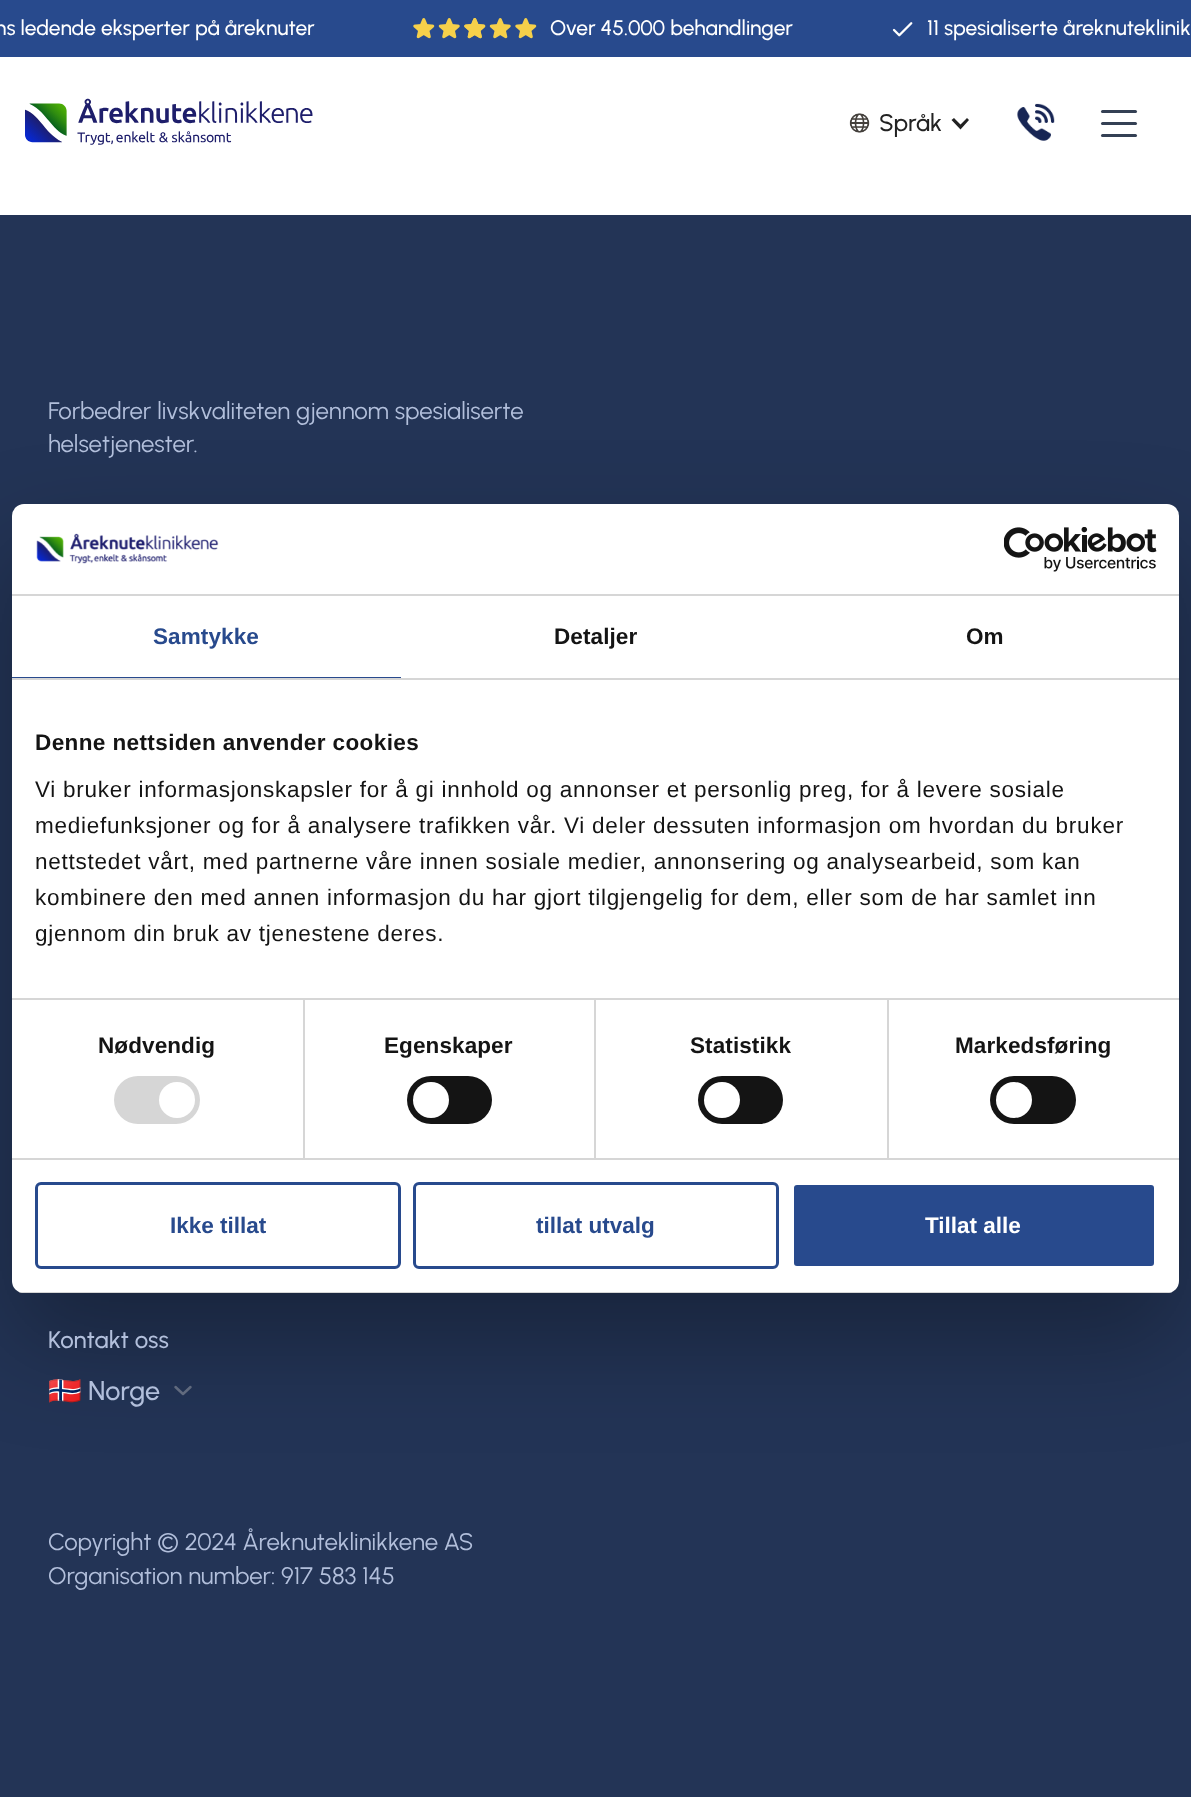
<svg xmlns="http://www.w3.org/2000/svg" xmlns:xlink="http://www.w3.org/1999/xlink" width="1191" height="1797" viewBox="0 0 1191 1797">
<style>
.cls-1{font:500 21px Urbanist;fill:#ffffff}
.cls-2{font:500 24px Urbanist;fill:#222222}
.cls-3{font:24px Urbanist;fill:#b2bfdb}
.cls-4{font:500 24px Urbanist;fill:#b2bfdb}
.cls-5{font:27px Noto Color Emoji;fill:#b2bfdb}
.cls-6{font:500 27px Urbanist;fill:#b2bfdb}
.cls-7{font:bold 22.5px Liberation Sans;letter-spacing:0.1px;fill:#284a8d}
.cls-8{font:bold 22.5px Liberation Sans;letter-spacing:0.1px;fill:#141414}
.cls-9{font:bold 22.5px Liberation Sans;letter-spacing:0.4px;fill:#141414}
.cls-10{font:22.5px Liberation Sans;letter-spacing:0.75px;fill:#141414}
.cls-11{font:bold 22.5px Liberation Sans;fill:#284a8d}
.cls-12{font:bold 22.5px Liberation Sans;fill:#ffffff}
</style>
<defs>
<clipPath id="clip1"><rect x="12" y="504" width="1167" height="789" rx="12"/></clipPath>
</defs>
<rect width="100%" height="100%" fill="#ffffff"/>
<rect fill="#284a8d" x="0" y="0" width="1191" height="57"/>
<image xlink:href="image0.png" x="413" y="18" width="124" height="21"/>
<image xlink:href="image1.png" x="892" y="22" width="21" height="15"/>
<image xlink:href="image2.png" x="25" y="98" width="288" height="47"/>
<image xlink:href="image3.png" x="849" y="113" width="21" height="20"/>
<path fill="#222222" d="M967 118L960.5 124.5L954 118L951.5 120L960.5 129.5L969 120Z"/>
<image xlink:href="image4.png" x="1017" y="103" width="38" height="38"/>
<rect fill="#344054" x="1101" y="110" width="36" height="3" rx="1.5"/>
<rect fill="#344054" x="1101" y="122" width="36" height="3" rx="1.5"/>
<rect fill="#344054" x="1101" y="134" width="36" height="3" rx="1.5"/>
<rect fill="#233456" x="0" y="215" width="1191" height="1582"/>
<path fill="none" stroke="#667085" stroke-width="2.5" stroke-linecap="round" stroke-linejoin="round" d="M175.5 1387L183 1394L190.5 1387"/>
<rect fill="#000000" fill-opacity="0.3" filter="blur(51px)" x="12" y="552" width="1167" height="789" rx="12"/>
<rect fill="#ffffff" x="12" y="504" width="1167" height="789" rx="12"/>
<rect fill="#d6d6d6" x="12" y="594" width="1167" height="2"/>
<image xlink:href="image5.png" x="36" y="533" width="183" height="31"/>
<image xlink:href="image6.png" x="1004" y="527" width="153" height="45"/>
<rect fill="#d6d6d6" x="12" y="678" width="1167" height="2"/>
<rect fill="#284a8d" x="12" y="677" width="389" height="1"/>
<rect fill="#d6d6d6" x="303" y="999" width="2" height="159"/>
<rect fill="#d6d6d6" x="594" y="999" width="2" height="159"/>
<rect fill="#d6d6d6" x="887" y="999" width="2" height="159"/>
<rect fill="#d6d6d6" x="12" y="998" width="1167" height="2"/>
<rect fill="#d6d6d6" x="12" y="1158" width="1167" height="2"/>
<rect fill="#d6d6d6" x="114" y="1076" width="86" height="48" rx="24"/>
<circle fill="#ffffff" cx="177" cy="1100" r="18"/>
<rect fill="#141414" x="407" y="1076" width="85" height="48" rx="24"/>
<circle fill="#ffffff" cx="431" cy="1100" r="18"/>
<rect fill="#141414" x="698" y="1076" width="85" height="48" rx="24"/>
<circle fill="#ffffff" cx="722" cy="1100" r="18"/>
<rect fill="#141414" x="990" y="1076" width="86" height="48" rx="24"/>
<circle fill="#ffffff" cx="1014" cy="1100" r="18"/>
<g clip-path="url(#clip1)">
<rect fill="#d6d6d6" x="12" y="1292" width="1167" height="1"/>
</g>
<rect fill="none" stroke="#284a8d" stroke-width="3" x="36.5" y="1183.5" width="363" height="84" rx="4.5"/>
<rect fill="none" stroke="#284a8d" stroke-width="3" x="414.5" y="1183.5" width="363" height="84" rx="4.5"/>
<rect fill="#284a8d" stroke="#ffffff" stroke-width="3" x="792.5" y="1183.5" width="363" height="84" rx="4.5"/>
<text class="cls-1" x="-5" y="35">ns ledende eksperter på åreknuter</text>
<text class="cls-1" x="550" y="35">Over 45.000 behandlinger</text>
<text class="cls-1" x="927" y="35">11 spesialiserte åreknuteklinik</text>
<text class="cls-2" x="879" y="131">Språk</text>
<text class="cls-3"><tspan x="48" y="419">Forbedrer livskvaliteten gjennom spesialiserte</tspan><tspan x="48" y="452">helsetjenester.</tspan></text>
<text class="cls-4" x="48" y="1348">Kontakt oss</text>
<text class="cls-5" x="48" y="1400">🇳🇴</text>
<text class="cls-6" x="88" y="1400">Norge</text>
<text class="cls-3"><tspan x="48" y="1550">Copyright © 2024 Åreknuteklinikkene AS</tspan><tspan x="48" y="1584">Organisation number: 917 583 145</tspan></text>
<text class="cls-7" x="153" y="644">Samtykke</text>
<text class="cls-8" x="554" y="644">Detaljer</text>
<text class="cls-8" x="966" y="644">Om</text>
<text class="cls-9" x="35" y="750">Denne nettsiden anvender cookies</text>
<text class="cls-10"><tspan x="35" y="797">Vi bruker informasjonskapsler for å gi innhold og annonser et personlig preg, for å levere sosiale</tspan><tspan x="35" y="833">mediefunksjoner og for å analysere trafikken vår. Vi deler dessuten informasjon om hvordan du bruker</tspan><tspan x="35" y="869">nettstedet vårt, med partnerne våre innen sosiale medier, annonsering og analysearbeid, som kan</tspan><tspan x="35" y="905">kombinere den med annen informasjon du har gjort tilgjengelig for dem, eller som de har samlet inn</tspan><tspan x="35" y="941">gjennom din bruk av tjenestene deres.</tspan></text>
<text class="cls-8" x="98" y="1053">Nødvendig</text>
<text class="cls-8" x="384" y="1053">Egenskaper</text>
<text class="cls-8" x="690" y="1053">Statistikk</text>
<text class="cls-8" x="955" y="1053">Markedsføring</text>
<text class="cls-11" x="170" y="1233">Ikke tillat</text>
<text class="cls-11" x="536" y="1233">tillat utvalg</text>
<text class="cls-12" x="925" y="1233">Tillat alle</text>
</svg>
